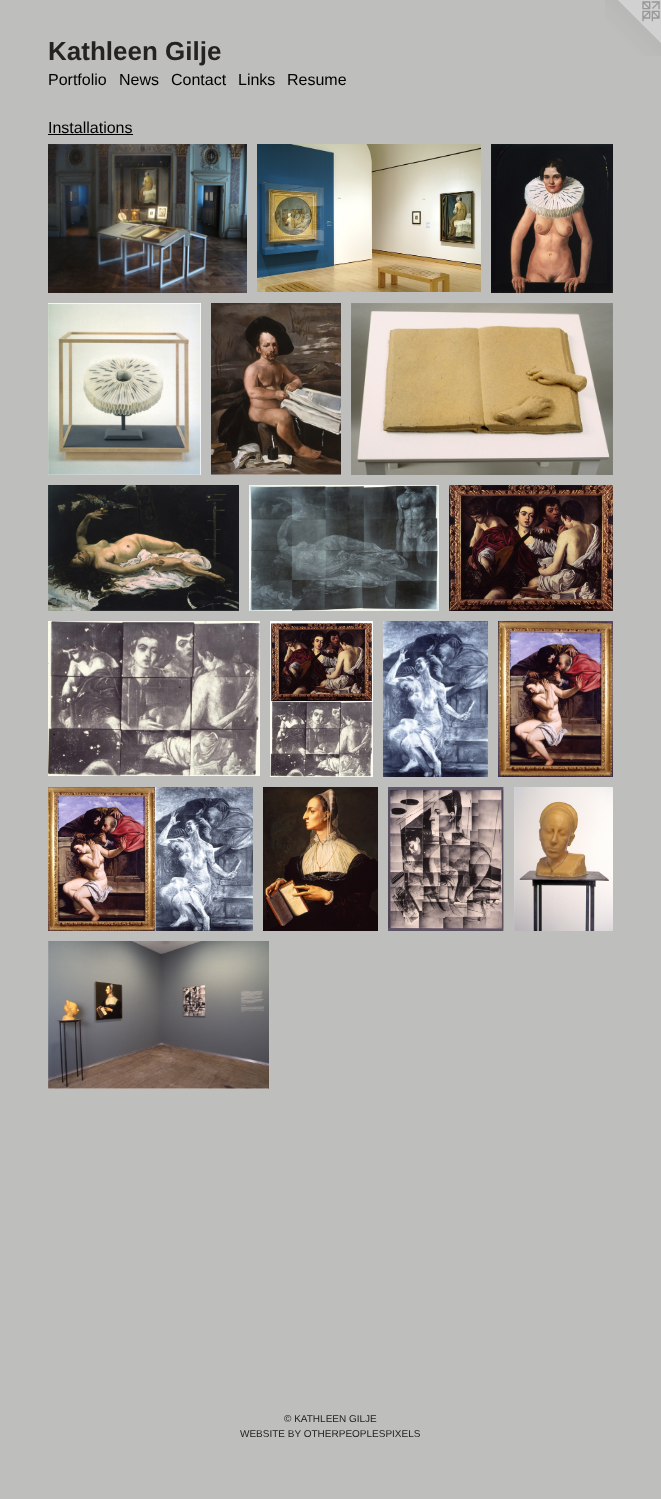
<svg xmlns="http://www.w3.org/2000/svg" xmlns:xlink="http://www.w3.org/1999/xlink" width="661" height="1499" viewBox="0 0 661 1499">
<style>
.cls-1{font:bold 26px Arimo;fill:#252222}
.cls-2{font:16px Arimo;fill:#000000}
.cls-3{font:10px Liberation Sans;fill:#1f1e1e}
</style>
<rect width="100%" height="100%" fill="#bebebd"/>
<image xlink:href="image0.png" x="605" y="0" width="56" height="56"/>
<rect fill="#000000" x="48" y="134" width="85" height="1"/>
<image xlink:href="image1.png" x="48" y="144" width="199" height="149"/>
<image xlink:href="image2.png" x="257" y="144" width="224" height="148"/>
<image xlink:href="image3.png" x="491" y="144" width="122" height="149"/>
<image xlink:href="image4.png" x="48" y="303" width="153" height="172"/>
<image xlink:href="image5.png" x="211" y="303" width="130" height="172"/>
<image xlink:href="image6.png" x="351" y="303" width="262" height="172"/>
<image xlink:href="image7.png" x="48" y="485" width="191" height="126"/>
<image xlink:href="image8.png" x="249" y="485" width="190" height="126"/>
<image xlink:href="image9.png" x="449" y="485" width="164" height="126"/>
<image xlink:href="image10.png" x="48" y="621" width="212" height="155"/>
<image xlink:href="image11.png" x="270" y="621" width="103" height="156"/>
<image xlink:href="image12.png" x="383" y="621" width="105" height="156"/>
<image xlink:href="image13.png" x="498" y="621" width="115" height="156"/>
<image xlink:href="image14.png" x="48" y="787" width="205" height="144"/>
<image xlink:href="image15.png" x="263" y="787" width="115" height="144"/>
<image xlink:href="image16.png" x="388" y="787" width="116" height="144"/>
<image xlink:href="image17.png" x="514" y="787" width="99" height="144"/>
<image xlink:href="image18.png" x="48" y="941" width="221" height="148"/>
<text class="cls-1" x="48" y="60">Kathleen Gilje</text>
<text class="cls-2" x="48" y="85">Portfolio</text>
<text class="cls-2" x="119" y="85">News</text>
<text class="cls-2" x="171" y="85">Contact</text>
<text class="cls-2" x="238" y="85">Links</text>
<text class="cls-2" x="287" y="85">Resume</text>
<text class="cls-2" x="48" y="133">Installations</text>
<text class="cls-3" x="284" y="1422">© KATHLEEN GILJE</text>
<text class="cls-3" x="240" y="1437">WEBSITE BY OTHERPEOPLESPIXELS</text>
</svg>
